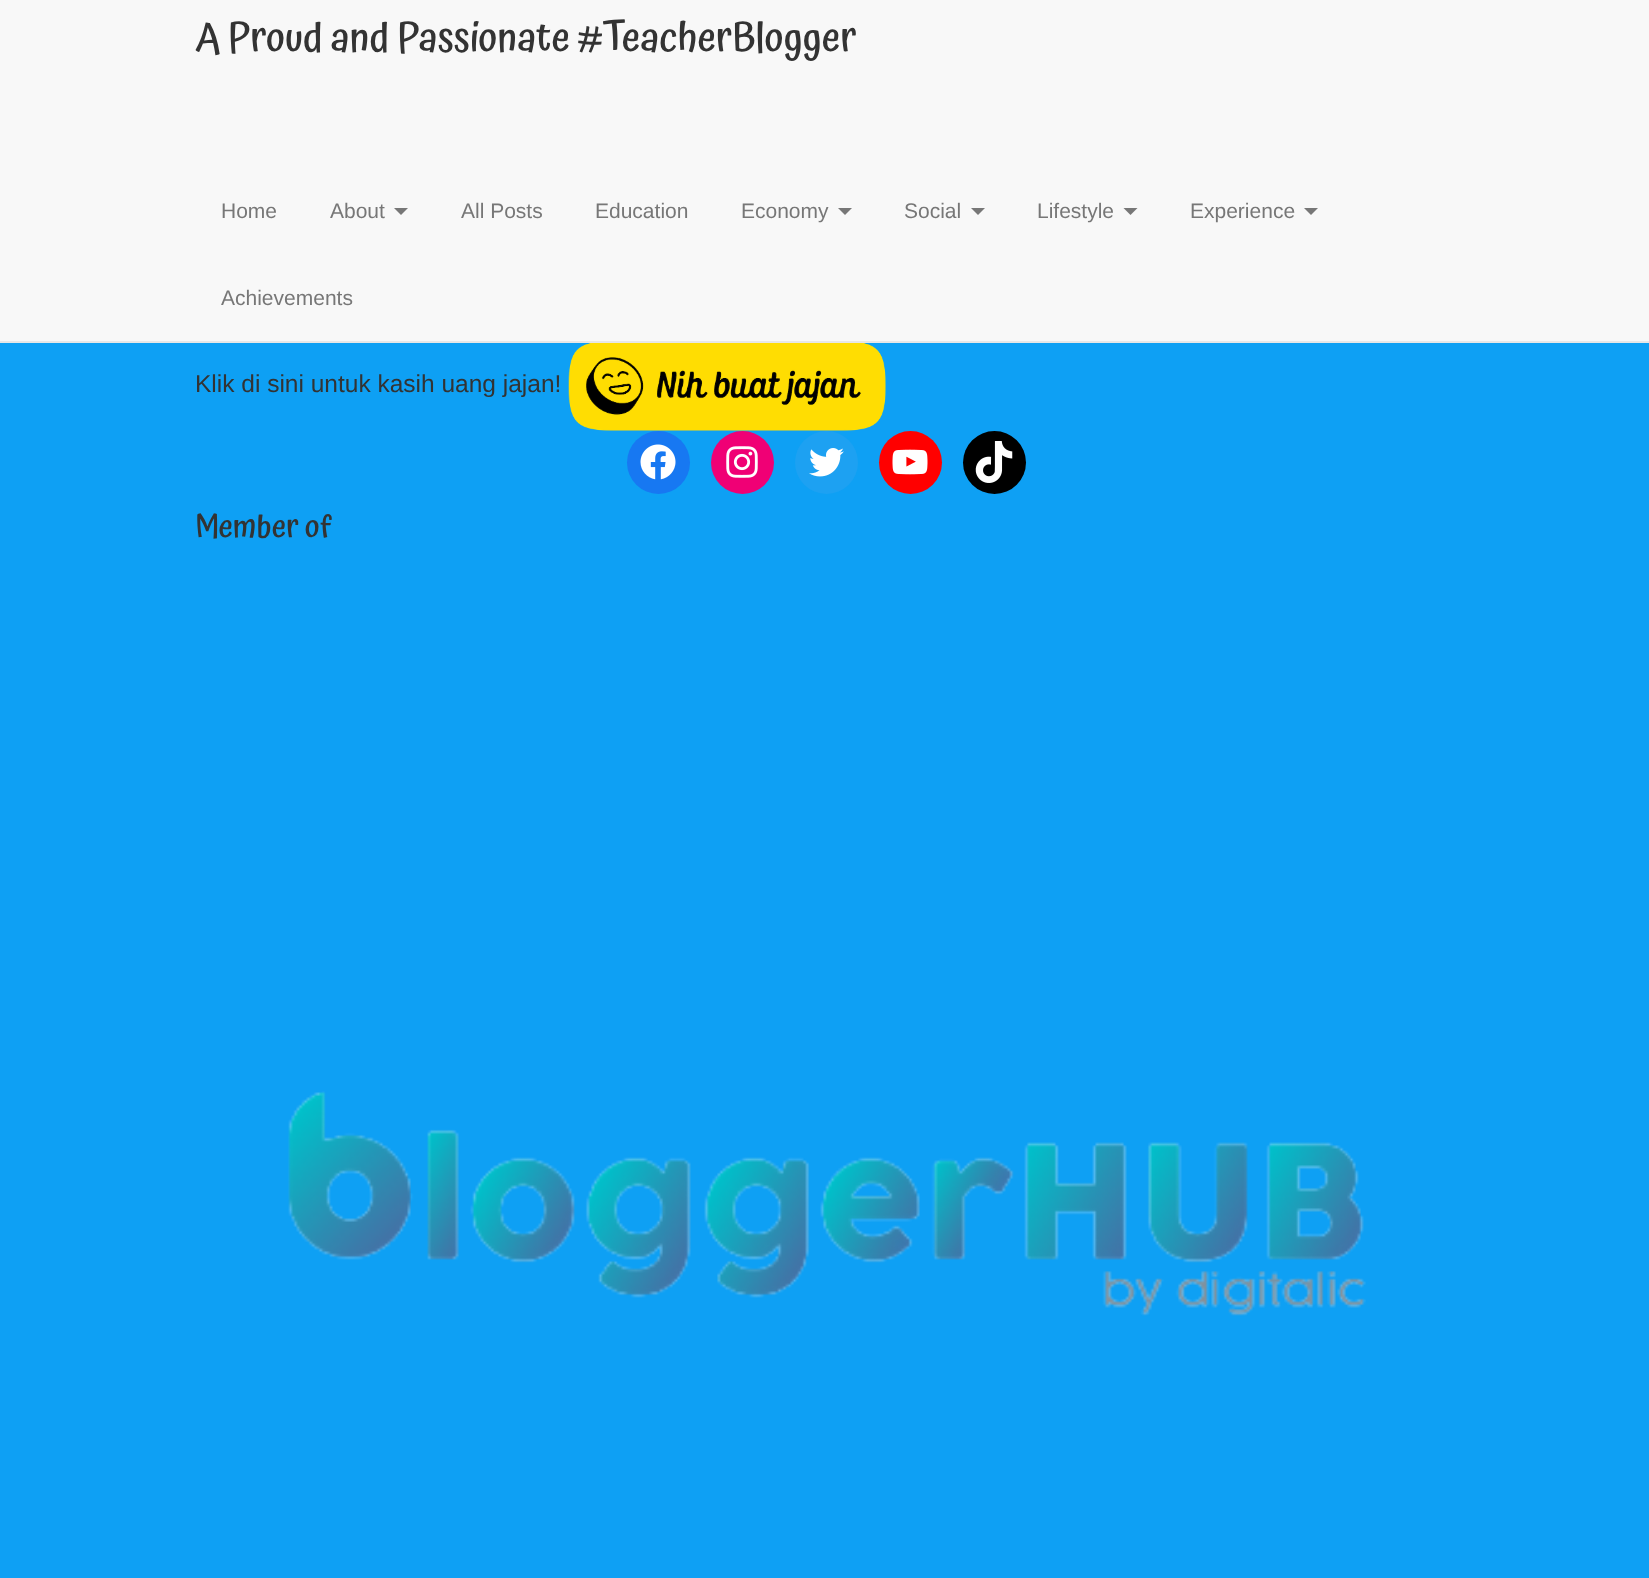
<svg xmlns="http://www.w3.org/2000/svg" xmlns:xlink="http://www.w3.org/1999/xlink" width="1649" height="1578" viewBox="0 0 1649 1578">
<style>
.cls-1{font:500 40.25px Atma;fill:#333333}
.cls-2{font:21px Liberation Sans;fill:#777777}
.cls-3{font:24.5px Liberation Sans;fill:#333333}
.cls-4{font:500 31.5px Atma;fill:#333333}
</style>
<rect width="100%" height="100%" fill="#0ea0f4"/>
<rect fill="#f8f8f8" x="0" y="0" width="1649" height="341"/>
<rect fill="#e7e7e7" x="0" y="341" width="1649" height="2"/>
<path fill="#777777" d="M394 208H408L401 215Z"/>
<path fill="#777777" d="M838 208H852L845 215Z"/>
<path fill="#777777" d="M971 208H985L978 215Z"/>
<path fill="#777777" d="M1123.5 208H1137.5L1130.5 215Z"/>
<path fill="#777777" d="M1304 208H1318L1311 215Z"/>
<image xlink:href="image0.png" x="568" y="343" width="318" height="88"/>
<circle fill="#1778f2" cx="658.5" cy="462.5" r="31.5"/>
<image xlink:href="image1.png" x="640" y="444" width="36" height="36"/>
<circle fill="#f00075" cx="742.5" cy="462.5" r="31.5"/>
<image xlink:href="image2.png" x="726" y="446" width="32" height="32"/>
<circle fill="#1da1f2" cx="826.5" cy="462.5" r="31.5"/>
<image xlink:href="image3.png" x="809" y="448" width="35" height="29"/>
<circle fill="#ff0000" cx="910.5" cy="462.5" r="31.5"/>
<image xlink:href="image4.png" x="892" y="449" width="36" height="26"/>
<circle fill="#000000" cx="994.5" cy="462.5" r="31.5"/>
<image xlink:href="image5.png" x="975" y="441" width="38" height="42"/>
<image xlink:href="image6.png" x="288" y="1091" width="1078" height="225"/>
<text class="cls-1" x="195" y="51">A Proud and Passionate #TeacherBlogger</text>
<text class="cls-2" x="221" y="218">Home</text>
<text class="cls-2" x="330" y="218">About</text>
<text class="cls-2" x="461" y="218">All Posts</text>
<text class="cls-2" x="595" y="218">Education</text>
<text class="cls-2" x="741" y="218">Economy</text>
<text class="cls-2" x="904" y="218">Social</text>
<text class="cls-2" x="1037" y="218">Lifestyle</text>
<text class="cls-2" x="1190" y="218">Experience</text>
<text class="cls-2" x="221" y="305">Achievements</text>
<text class="cls-3" x="195" y="392">Klik di sini untuk kasih uang jajan!</text>
<text class="cls-4" x="195" y="537">Member of</text>
</svg>
